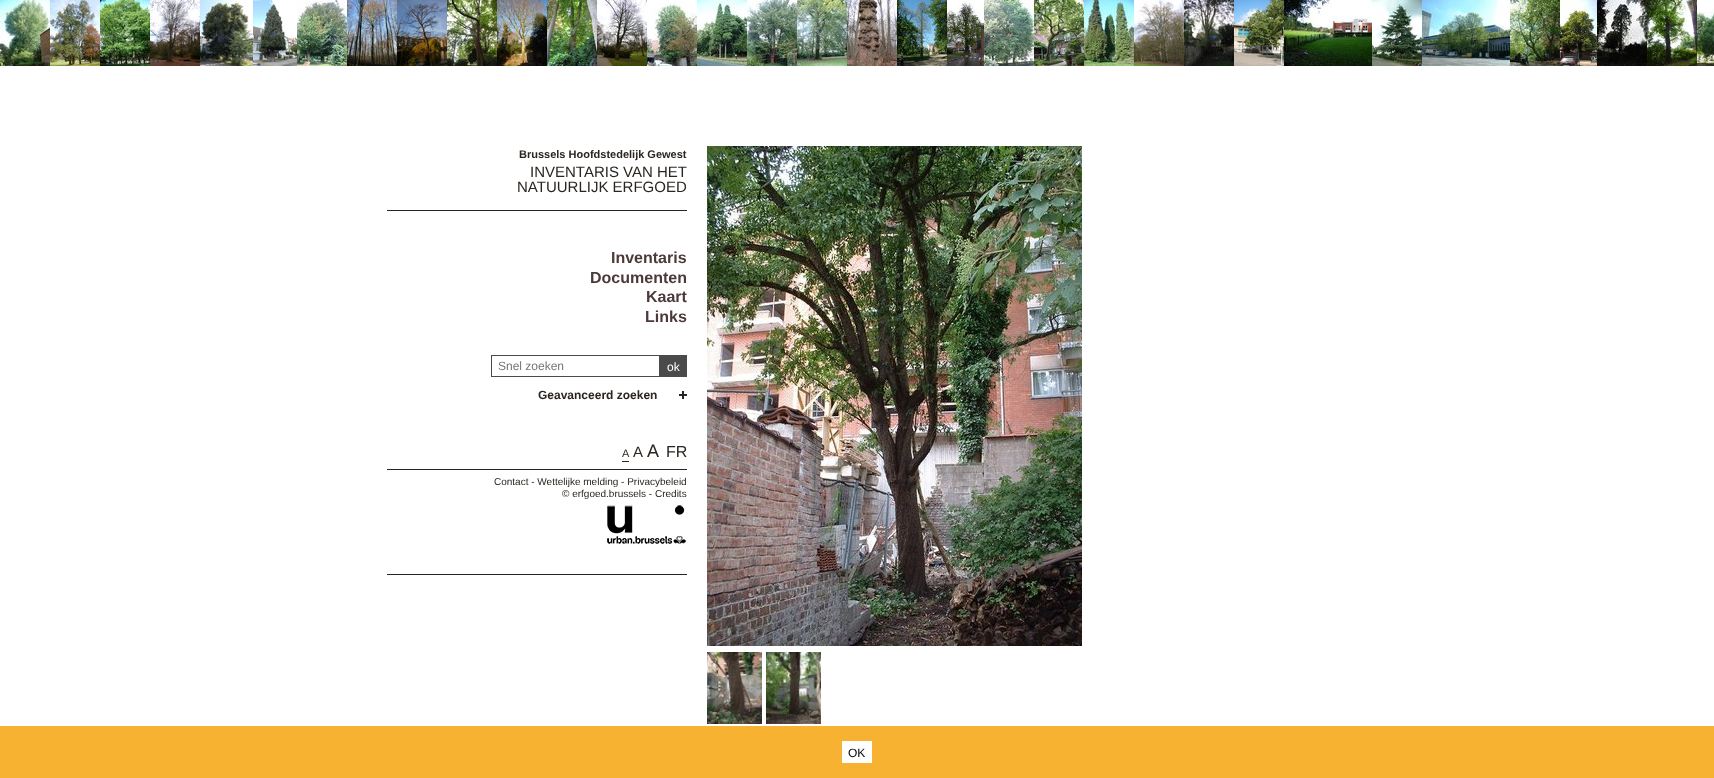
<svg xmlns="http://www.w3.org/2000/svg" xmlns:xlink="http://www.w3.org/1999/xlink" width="1714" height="778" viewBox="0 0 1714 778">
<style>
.cls-1{font:bold 11px Liberation Sans;fill:#2a2520}
.cls-2{font:15px Liberation Sans;fill:#2a2520}
.cls-3{font:bold 16px Liberation Sans;fill:#4c3a3a}
.cls-4{font:12px Liberation Sans;fill:#757575}
.cls-5{font:12px Liberation Sans;fill:#ffffff}
.cls-6{font:bold 12px Liberation Sans;fill:#2a2520}
.cls-7{font:11px Liberation Sans;fill:#2a2520}
.cls-8{font:18px Liberation Sans;fill:#2a2520}
.cls-9{font:16px Liberation Sans;fill:#2a2520}
.cls-10{font:10px Liberation Sans;fill:#2a2520}
.cls-11{font:12px Liberation Sans;fill:#000000}
</style>
<rect width="100%" height="100%" fill="#ffffff"/>
<image xlink:href="image0.png" x="0" y="0" width="50" height="66"/>
<image xlink:href="image1.png" x="50" y="0" width="50" height="66"/>
<image xlink:href="image2.png" x="100" y="0" width="50" height="66"/>
<image xlink:href="image3.png" x="150" y="0" width="50" height="66"/>
<image xlink:href="image4.png" x="200" y="0" width="53" height="66"/>
<image xlink:href="image5.png" x="253" y="0" width="44" height="66"/>
<image xlink:href="image6.png" x="297" y="0" width="50" height="66"/>
<image xlink:href="image7.png" x="347" y="0" width="50" height="66"/>
<image xlink:href="image8.png" x="397" y="0" width="50" height="66"/>
<image xlink:href="image9.png" x="447" y="0" width="50" height="66"/>
<image xlink:href="image10.png" x="497" y="0" width="50" height="66"/>
<image xlink:href="image11.png" x="547" y="0" width="50" height="66"/>
<image xlink:href="image12.png" x="597" y="0" width="50" height="66"/>
<image xlink:href="image13.png" x="647" y="0" width="50" height="66"/>
<image xlink:href="image14.png" x="697" y="0" width="50" height="66"/>
<image xlink:href="image15.png" x="747" y="0" width="50" height="66"/>
<image xlink:href="image16.png" x="797" y="0" width="50" height="66"/>
<image xlink:href="image17.png" x="847" y="0" width="50" height="66"/>
<image xlink:href="image18.png" x="897" y="0" width="50" height="66"/>
<image xlink:href="image19.png" x="947" y="0" width="37" height="66"/>
<image xlink:href="image20.png" x="984" y="0" width="50" height="66"/>
<image xlink:href="image21.png" x="1034" y="0" width="50" height="66"/>
<image xlink:href="image22.png" x="1084" y="0" width="50" height="66"/>
<image xlink:href="image23.png" x="1134" y="0" width="50" height="66"/>
<image xlink:href="image24.png" x="1184" y="0" width="50" height="66"/>
<image xlink:href="image25.png" x="1234" y="0" width="50" height="66"/>
<image xlink:href="image26.png" x="1284" y="0" width="88" height="66"/>
<image xlink:href="image27.png" x="1372" y="0" width="50" height="66"/>
<image xlink:href="image28.png" x="1422" y="0" width="88" height="66"/>
<image xlink:href="image29.png" x="1510" y="0" width="50" height="66"/>
<image xlink:href="image30.png" x="1560" y="0" width="37" height="66"/>
<image xlink:href="image31.png" x="1597" y="0" width="50" height="66"/>
<image xlink:href="image32.png" x="1647" y="0" width="50" height="66"/>
<image xlink:href="image33.png" x="1697" y="7" width="17" height="59"/>
<rect fill="#2a2520" x="387" y="210" width="300" height="1"/>
<rect fill="#2a2520" x="387" y="574" width="300" height="1"/>
<rect fill="none" stroke="#4a4a4a" x="491.5" y="355.5" width="168" height="21"/>
<rect fill="#4a4a4a" x="660" y="355" width="27" height="22"/>
<rect fill="#2a2520" x="682" y="391" width="2" height="8"/>
<rect fill="#2a2520" x="679" y="394" width="8" height="2"/>
<rect fill="#2a2520" x="622" y="461" width="7" height="1"/>
<rect fill="#2a2520" x="387" y="469" width="300" height="1"/>
<image xlink:href="image34.png" x="607" y="505" width="79" height="39"/>
<image xlink:href="image35.png" x="707" y="146" width="375" height="500"/>
<image xlink:href="image36.png" x="707" y="652" width="55" height="72"/>
<image xlink:href="image37.png" x="766" y="652" width="55" height="72"/>
<rect fill="#f8b232" x="0" y="726" width="1714" height="52"/>
<rect fill="#ffffff" x="842" y="741" width="30" height="22"/>
<text class="cls-1" x="519" y="158">Brussels Hoofdstedelijk Gewest</text>
<text class="cls-2" x="530" y="177">INVENTARIS VAN HET</text>
<text class="cls-2" x="517" y="192">NATUURLIJK ERFGOED</text>
<text class="cls-3" x="611" y="263">Inventaris</text>
<text class="cls-3" x="590" y="283">Documenten</text>
<text class="cls-3" x="646" y="302">Kaart</text>
<text class="cls-3" x="645" y="322">Links</text>
<text class="cls-4" x="498" y="370">Snel zoeken</text>
<text class="cls-5" x="667" y="371">ok</text>
<text class="cls-6" x="538" y="399">Geavanceerd zoeken</text>
<text class="cls-7" x="622" y="457">A</text>
<text class="cls-2" x="633" y="457">A</text>
<text class="cls-8" x="647" y="457">A</text>
<text class="cls-9" x="666" y="457">FR</text>
<text class="cls-10" x="494" y="485">Contact - Wettelijke melding - Privacybeleid</text>
<text class="cls-10" x="562" y="497">© erfgoed.brussels - Credits</text>
<text class="cls-11" x="848" y="757">OK</text>
</svg>
